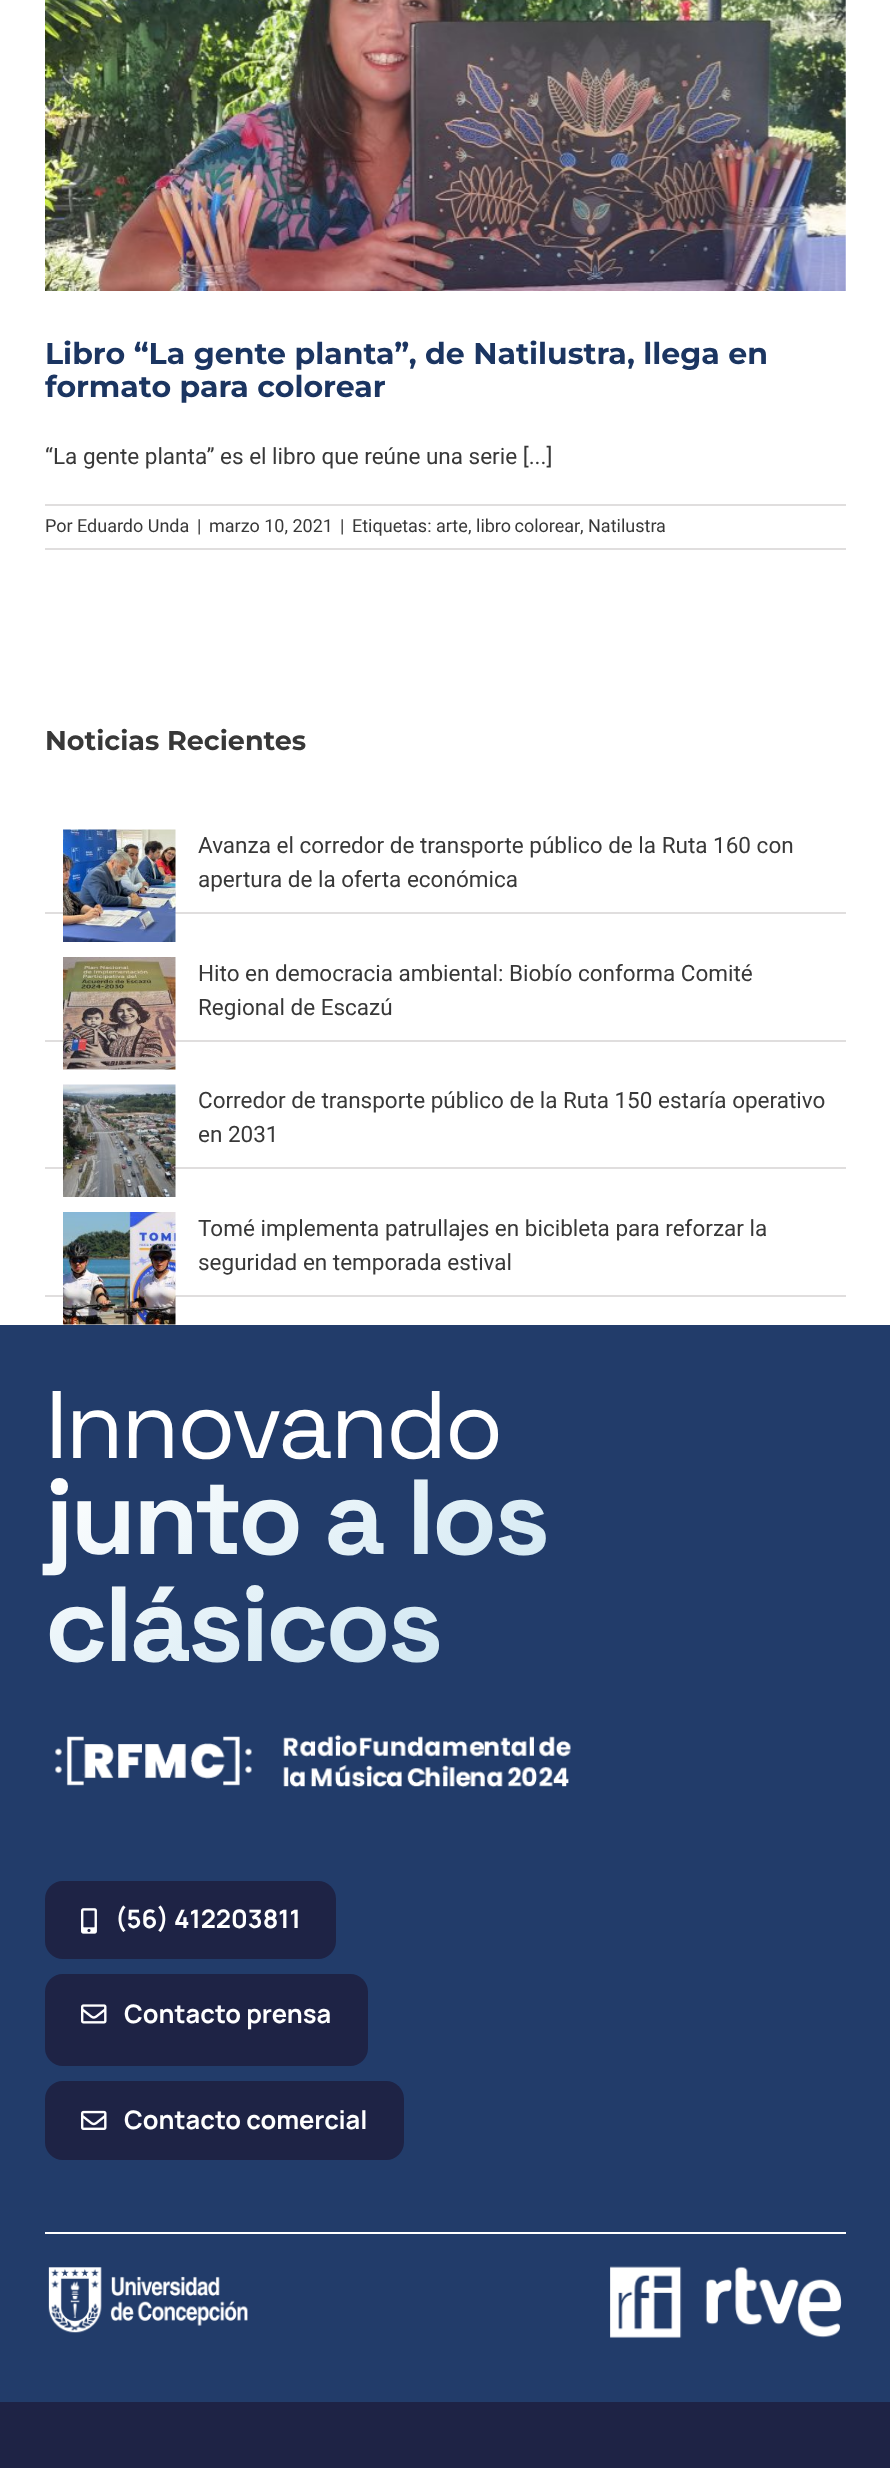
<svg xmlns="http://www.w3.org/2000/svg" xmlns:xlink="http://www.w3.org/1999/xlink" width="890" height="2468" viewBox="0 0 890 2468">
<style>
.cls-1{font:bold 30px Montserrat;fill:#1b3561}
.cls-2{font:22.5px Roboto;fill:#383838}
.cls-3{font:18px Roboto;fill:#383838}
.cls-4{font:bold 27px Montserrat;fill:#383838}
.cls-5{font:95.75px Space Grotesk;letter-spacing:-3px;fill:#ffffff}
.cls-6{font:bold 106.5px Space Grotesk;letter-spacing:-3px;fill:url(#g1)}
.cls-7{font:bold 25.5px Manrope;fill:#ffffff}
</style>
<defs>
<linearGradient id="g1" gradientUnits="userSpaceOnUse" x1="285" y1="1314" x2="606" y2="1827"><stop offset="0" stop-color="#ffffff"/><stop offset="0.64" stop-color="#d0e7f2"/></linearGradient>
</defs>
<rect width="100%" height="100%" fill="#ffffff"/>
<image xlink:href="image0.png" x="45" y="0" width="801" height="291"/>
<rect fill="#e0dede" x="45" y="504" width="801" height="2"/>
<rect fill="#e0dede" x="45" y="548" width="801" height="2"/>
<rect fill="#e0dede" x="45" y="912" width="801" height="2"/>
<image xlink:href="image1.png" x="63" y="829" width="113" height="113"/>
<rect fill="#e0dede" x="45" y="1040" width="801" height="2"/>
<image xlink:href="image2.png" x="63" y="957" width="113" height="113"/>
<rect fill="#e0dede" x="45" y="1167" width="801" height="2"/>
<image xlink:href="image3.png" x="63" y="1084" width="113" height="113"/>
<rect fill="#e0dede" x="45" y="1295" width="801" height="2"/>
<image xlink:href="image4.png" x="63" y="1212" width="113" height="113"/>
<rect fill="#223c6a" x="0" y="1325" width="890" height="1077"/>
<image xlink:href="image5.png" x="55" y="1734" width="516" height="54"/>
<rect fill="#1e2345" x="45" y="1881" width="291" height="78" rx="18"/>
<image xlink:href="image6.png" x="81" y="1908" width="16" height="26"/>
<rect fill="#1e2345" x="45" y="1974" width="323" height="92" rx="18"/>
<image xlink:href="image7.png" x="81" y="2004" width="26" height="20"/>
<rect fill="#1e2345" x="45" y="2081" width="359" height="79" rx="18"/>
<image xlink:href="image8.png" x="81" y="2110" width="26" height="20"/>
<rect fill="#ffffff" x="45" y="2232" width="801" height="2"/>
<image xlink:href="image9.png" x="48" y="2267" width="200" height="66"/>
<image xlink:href="image10.png" x="610" y="2266" width="232" height="72"/>
<rect fill="#1e2345" x="0" y="2402" width="890" height="66"/>
<text class="cls-1"><tspan x="45" y="364">Libro “La gente planta”, de Natilustra, llega en</tspan><tspan x="45" y="397">formato para colorear</tspan></text>
<text class="cls-2" x="45" y="464">“La gente planta” es el libro que reúne una serie [...]</text>
<text class="cls-3" x="45" y="532">Por</text>
<text class="cls-3" x="77" y="532">Eduardo Unda</text>
<text class="cls-3" x="197" y="532">|</text>
<text class="cls-3" x="209" y="532">marzo 10, 2021</text>
<text class="cls-3" x="340" y="532">|</text>
<text class="cls-3" x="352" y="532">Etiquetas:</text>
<text class="cls-3" x="436" y="532">arte</text>
<text class="cls-3" x="468" y="532">,</text>
<text class="cls-3" x="476" y="532" word-spacing="-1">libro colorear</text>
<text class="cls-3" x="580" y="532">,</text>
<text class="cls-3" x="588" y="532">Natilustra</text>
<text class="cls-4" x="45" y="750">Noticias Recientes</text>
<text class="cls-2"><tspan x="198" y="853">Avanza el corredor de transporte público de la Ruta 160 con</tspan><tspan x="198" y="887">apertura de la oferta económica</tspan></text>
<text class="cls-2"><tspan x="198" y="981">Hito en democracia ambiental: Biobío conforma Comité</tspan><tspan x="198" y="1015">Regional de Escazú</tspan></text>
<text class="cls-2"><tspan x="198" y="1108">Corredor de transporte público de la Ruta 150 estaría operativo</tspan><tspan x="198" y="1142">en 2031</tspan></text>
<text class="cls-2"><tspan x="198" y="1236">Tomé implementa patrullajes en bicibleta para reforzar la</tspan><tspan x="198" y="1270">seguridad en temporada estival</tspan></text>
<text class="cls-5" x="45" y="1458">Innovando</text>
<text class="cls-6"><tspan x="45" y="1554">junto a los</tspan><tspan x="45" y="1661">clásicos</tspan></text>
<text class="cls-7" x="115" y="1928">(56) 412203811</text>
<text class="cls-7" x="124" y="2023">Contacto prensa</text>
<text class="cls-7" x="124" y="2129">Contacto comercial</text>
</svg>
